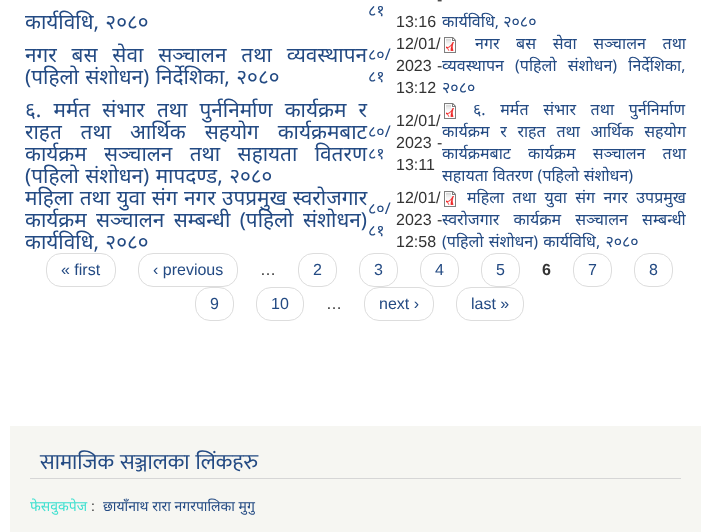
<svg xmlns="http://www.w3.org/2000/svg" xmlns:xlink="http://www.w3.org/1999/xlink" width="711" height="532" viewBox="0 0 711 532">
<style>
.cls-1{font:20.75px Noto Sans;fill:#234a83}
.cls-2{font:16px Noto Sans;fill:#234a83}
.cls-3{font:16px Liberation Sans;fill:#333333}
.cls-4{font:16px Liberation Sans;fill:#234a83}
.cls-5{font:bold 16px Liberation Sans;fill:#333333}
.cls-6{font:22px Mukta;fill:#234a83}
.cls-7{font:14px Noto Sans;fill:#40e0d0}
.cls-8{font:14px Liberation Sans;fill:#333333}
.cls-9{font:14px Noto Sans;fill:#234a83}
</style>
<rect width="100%" height="100%" fill="#ffffff"/>
<image xlink:href="image0.png" x="444" y="37" width="12" height="16"/>
<image xlink:href="image0.png" x="444" y="103" width="12" height="16"/>
<image xlink:href="image0.png" x="444" y="191" width="12" height="16"/>
<rect fill="none" stroke="#dddddd" x="46.5" y="253.5" width="69" height="33" rx="14.5"/>
<rect fill="none" stroke="#dddddd" x="138.5" y="253.5" width="99" height="33" rx="14.5"/>
<rect fill="none" stroke="#dddddd" x="298.5" y="253.5" width="38" height="33" rx="14.5"/>
<rect fill="none" stroke="#dddddd" x="359.5" y="253.5" width="38" height="33" rx="14.5"/>
<rect fill="none" stroke="#dddddd" x="420.5" y="253.5" width="38" height="33" rx="14.5"/>
<rect fill="none" stroke="#dddddd" x="481.5" y="253.5" width="38" height="33" rx="14.5"/>
<rect fill="none" stroke="#dddddd" x="573.5" y="253.5" width="38" height="33" rx="14.5"/>
<rect fill="none" stroke="#dddddd" x="634.5" y="253.5" width="38" height="33" rx="14.5"/>
<rect fill="none" stroke="#dddddd" x="195.5" y="287.5" width="38" height="33" rx="14.5"/>
<rect fill="none" stroke="#dddddd" x="256.5" y="287.5" width="47" height="33" rx="14.5"/>
<rect fill="none" stroke="#dddddd" x="364.5" y="287.5" width="69" height="33" rx="14.5"/>
<rect fill="none" stroke="#dddddd" x="456.5" y="287.5" width="67" height="33" rx="14.5"/>
<rect fill="#f6f6f2" x="10" y="426" width="691" height="106"/>
<rect fill="#d6d6d6" x="30" y="478" width="651" height="1"/>
<text class="cls-1" x="25" y="29" word-spacing="1">कार्यविधि, २०८०</text>
<text class="cls-2" x="368" y="16">८१</text>
<text class="cls-3" x="437" y="5" word-spacing="1">-</text>
<text class="cls-3" x="396" y="27">13:16</text>
<text class="cls-2" x="442" y="27">कार्यविधि, २०८०</text>
<text class="cls-1"><tspan x="25" y="62" word-spacing="9.5">नगर बस सेवा सञ्चालन तथा व्यवस्थापन</tspan><tspan x="25" y="84" word-spacing="1">(पहिलो संशोधन) निर्देशिका, २०८०</tspan></text>
<text class="cls-2"><tspan x="368" y="60">८०/</tspan><tspan x="368" y="82">८१</tspan></text>
<text class="cls-3"><tspan x="396" y="49">12/01/</tspan><tspan x="396" y="71" word-spacing="1">2023 -</tspan><tspan x="396" y="93">13:12</tspan></text>
<text class="cls-2" x="475" y="49" word-spacing="12.5">नगर बस सेवा सञ्चालन तथा</text>
<text class="cls-2"><tspan x="442" y="71" word-spacing="7">व्यवस्थापन (पहिलो संशोधन) निर्देशिका,</tspan><tspan x="442" y="93">२०८०</tspan></text>
<text class="cls-1"><tspan x="25" y="117" word-spacing="6.75">६. मर्मत संभार तथा पुर्ननिर्माण कार्यक्रम र</tspan><tspan x="25" y="139" word-spacing="13.5">राहत तथा आर्थिक सहयोग कार्यक्रमबाट</tspan><tspan x="25" y="161" word-spacing="12">कार्यक्रम सञ्चालन तथा सहायता वितरण</tspan><tspan x="25" y="183" word-spacing="1">(पहिलो संशोधन) मापदण्ड, २०८०</tspan></text>
<text class="cls-2"><tspan x="368" y="137">८०/</tspan><tspan x="368" y="159">८१</tspan></text>
<text class="cls-3"><tspan x="396" y="126">12/01/</tspan><tspan x="396" y="148" word-spacing="1">2023 -</tspan><tspan x="396" y="170">13:11</tspan></text>
<text class="cls-2" x="473" y="115" word-spacing="10.5">६. मर्मत संभार तथा पुर्ननिर्माण</text>
<text class="cls-2"><tspan x="442" y="137" word-spacing="6.5">कार्यक्रम र राहत तथा आर्थिक सहयोग</tspan><tspan x="442" y="159" word-spacing="13">कार्यक्रमबाट कार्यक्रम सञ्चालन तथा</tspan><tspan x="442" y="181" word-spacing="0.5">सहायता वितरण (पहिलो संशोधन)</tspan></text>
<text class="cls-1"><tspan x="25" y="205" word-spacing="1">महिला तथा युवा संग नगर उपप्रमुख स्वरोजगार</tspan><tspan x="25" y="227" word-spacing="4">कार्यक्रम सञ्चालन सम्बन्धी (पहिलो संशोधन)</tspan><tspan x="25" y="249" word-spacing="1">कार्यविधि, २०८०</tspan></text>
<text class="cls-2"><tspan x="368" y="214">८०/</tspan><tspan x="368" y="236">८१</tspan></text>
<text class="cls-3"><tspan x="396" y="203">12/01/</tspan><tspan x="396" y="225" word-spacing="1">2023 -</tspan><tspan x="396" y="247">12:58</tspan></text>
<text class="cls-2" x="467" y="203" word-spacing="4.25">महिला तथा युवा संग नगर उपप्रमुख</text>
<text class="cls-2"><tspan x="442" y="225" word-spacing="10">स्वरोजगार कार्यक्रम सञ्चालन सम्बन्धी</tspan><tspan x="442" y="247" word-spacing="1">(पहिलो संशोधन) कार्यविधि, २०८०</tspan></text>
<text class="cls-4" x="61" y="275">« first</text>
<text class="cls-4" x="153" y="275">‹ previous</text>
<text class="cls-3" x="260" y="275">…</text>
<text class="cls-4" x="313" y="275">2</text>
<text class="cls-4" x="374" y="275">3</text>
<text class="cls-4" x="435" y="275">4</text>
<text class="cls-4" x="496" y="275">5</text>
<text class="cls-5" x="542" y="275">6</text>
<text class="cls-4" x="588" y="275">7</text>
<text class="cls-4" x="649" y="275">8</text>
<text class="cls-4" x="210" y="309">9</text>
<text class="cls-4" x="271" y="309">10</text>
<text class="cls-3" x="326" y="309">…</text>
<text class="cls-4" x="379" y="309">next ›</text>
<text class="cls-4" x="471" y="309">last »</text>
<text class="cls-6" x="40" y="469" word-spacing="1">सामाजिक सञ्जालका लिंकहरु</text>
<text class="cls-7" x="30" y="511">फेसवुकपेज</text>
<text class="cls-8" x="91" y="511">:</text>
<text class="cls-9" x="103" y="511">छायाँनाथ रारा नगरपालिका मुगु</text>
</svg>
